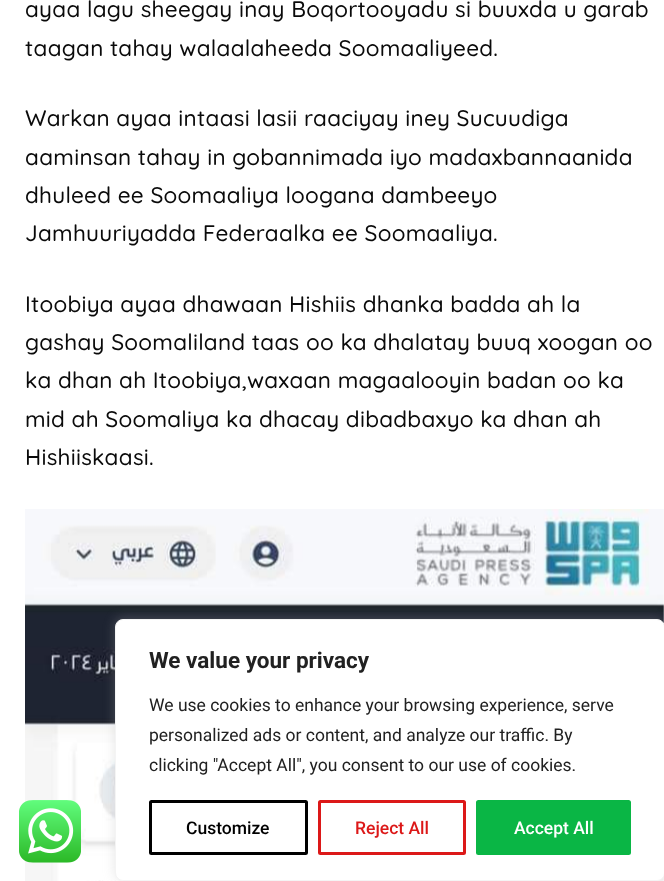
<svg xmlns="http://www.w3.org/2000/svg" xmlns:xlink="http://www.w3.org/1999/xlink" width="664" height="881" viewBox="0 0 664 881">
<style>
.cls-1{font:500 22.5px Quicksand;letter-spacing:0.25px;fill:#0a0a0a}
.cls-2{font:bold 22.5px Roboto;fill:#212121}
.cls-3{font:17.5px Roboto;fill:#212121}
.cls-4{font:500 17.5px Roboto;fill:#000000}
.cls-5{font:500 17.5px Roboto;fill:#dc1818}
.cls-6{font:500 17.5px Roboto;fill:#ffffff}
</style>
<rect width="100%" height="100%" fill="#ffffff"/>
<image xlink:href="image0.png" x="25" y="509" width="639" height="372"/>
<image xlink:href="image1.png" x="19" y="800" width="62" height="63"/>
<rect fill="#acabab" fill-opacity="0.3" filter="blur(6px)" x="115" y="618" width="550" height="262" rx="8"/>
<rect fill="#ffffff" stroke="#f4f4f4" x="115.5" y="619.5" width="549" height="261" rx="7.5"/>
<rect fill="none" stroke="#000000" stroke-width="3" x="150.5" y="801.5" width="156" height="52" rx="1"/>
<rect fill="none" stroke="#dc1818" stroke-width="3" x="319.5" y="801.5" width="145" height="52" rx="1"/>
<rect fill="#0ab645" stroke="#0ab645" stroke-width="3" x="477.5" y="801.5" width="152" height="52" rx="1"/>
<text class="cls-1"><tspan x="25" y="17">ayaa lagu sheegay inay Boqortooyadu si buuxda u garab</tspan><tspan x="25" y="56">taagan tahay walaalaheeda Soomaaliyeed.</tspan></text>
<text class="cls-1"><tspan x="25" y="126">Warkan ayaa intaasi lasii raaciyay iney Sucuudiga</tspan><tspan x="25" y="165">aaminsan tahay in gobannimada iyo madaxbannaanida</tspan><tspan x="25" y="203">dhuleed ee Soomaaliya loogana dambeeyo</tspan><tspan x="25" y="241">Jamhuuriyadda Federaalka ee Soomaaliya.</tspan></text>
<text class="cls-1"><tspan x="25" y="312">Itoobiya ayaa dhawaan Hishiis dhanka badda ah la</tspan><tspan x="25" y="350">gashay Soomaliland taas oo ka dhalatay buuq xoogan oo</tspan><tspan x="25" y="388">ka dhan ah Itoobiya,waxaan magaalooyin badan oo ka</tspan><tspan x="25" y="427">mid ah Soomaliya ka dhacay dibadbaxyo ka dhan ah</tspan><tspan x="25" y="465">Hishiiskaasi.</tspan></text>
<text class="cls-2" x="149" y="668">We value your privacy</text>
<text class="cls-3"><tspan x="149" y="711">We use cookies to enhance your browsing experience, serve</tspan><tspan x="149" y="741">personalized ads or content, and analyze our traffic. By</tspan><tspan x="149" y="771">clicking "Accept All", you consent to our use of cookies.</tspan></text>
<text class="cls-4" x="186" y="834">Customize</text>
<text class="cls-5" x="355" y="834">Reject All</text>
<text class="cls-6" x="514" y="834">Accept All</text>
</svg>
